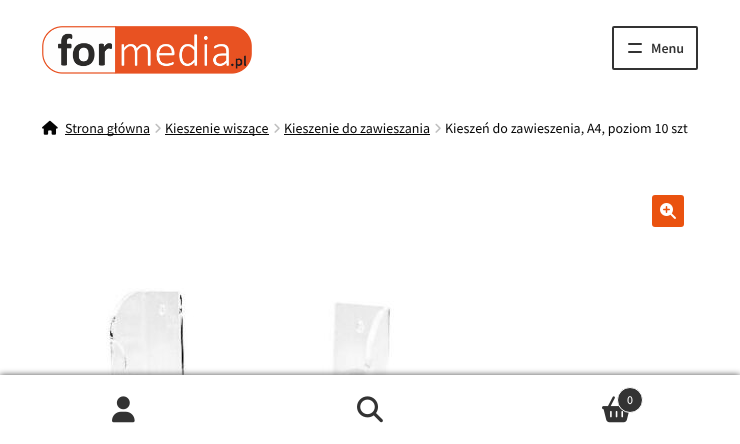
<svg xmlns="http://www.w3.org/2000/svg" xmlns:xlink="http://www.w3.org/1999/xlink" width="740" height="444" viewBox="0 0 740 444">
<style>
.cls-1{font:600 14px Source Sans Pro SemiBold;fill:#333333}
.cls-2{font:14px Source Sans Pro;fill:#050505}
.cls-3{font:12px Source Sans Pro;fill:#ffffff}
</style>
<rect width="100%" height="100%" fill="#ffffff"/>
<image xlink:href="image0.png" x="42" y="26" width="210" height="48"/>
<rect fill="none" stroke="#333333" stroke-width="2" x="613" y="27" width="84" height="42" rx="1"/>
<rect fill="#333333" x="628" y="43" width="14" height="2" rx="1"/>
<rect fill="#333333" x="628" y="51" width="14" height="2" rx="1"/>
<image xlink:href="image1.png" x="42" y="120" width="16" height="15"/>
<rect fill="#050505" x="65" y="134" width="85" height="1"/>
<image xlink:href="image2.png" x="155" y="123" width="6" height="10"/>
<rect fill="#050505" x="165" y="134" width="104" height="1"/>
<image xlink:href="image2.png" x="274" y="123" width="6" height="10"/>
<rect fill="#050505" x="284" y="134" width="146" height="1"/>
<image xlink:href="image2.png" x="435" y="123" width="6" height="10"/>
<rect fill="#ea520f" x="652" y="195" width="32" height="32" rx="3"/>
<image xlink:href="image3.png" x="660" y="203" width="16" height="16"/>
<image xlink:href="image4.png" x="106" y="288" width="288" height="87"/>
<rect fill="#000000" fill-opacity="0.7" filter="blur(3px)" x="0" y="375" width="740" height="69"/>
<rect fill="#ffffff" x="0" y="375" width="740" height="1"/>
<rect fill="#ffffff" x="0" y="376" width="740" height="68"/>
<image xlink:href="image5.png" x="112" y="396" width="23" height="27"/>
<image xlink:href="image6.png" x="357" y="396" width="26" height="27"/>
<image xlink:href="image7.png" x="602" y="396" width="27" height="27"/>
<circle fill="#333333" stroke="#ffffff" cx="630" cy="400" r="12.5"/>
<text class="cls-1" x="651" y="53">Menu</text>
<text class="cls-2" x="65" y="133">Strona główna</text>
<text class="cls-2" x="165" y="133">Kieszenie wiszące</text>
<text class="cls-2" x="284" y="133">Kieszenie do zawieszania</text>
<text class="cls-2" x="445" y="133">Kieszeń do zawieszenia, A4, poziom 10 szt</text>
<text class="cls-3" x="627" y="404">0</text>
</svg>
